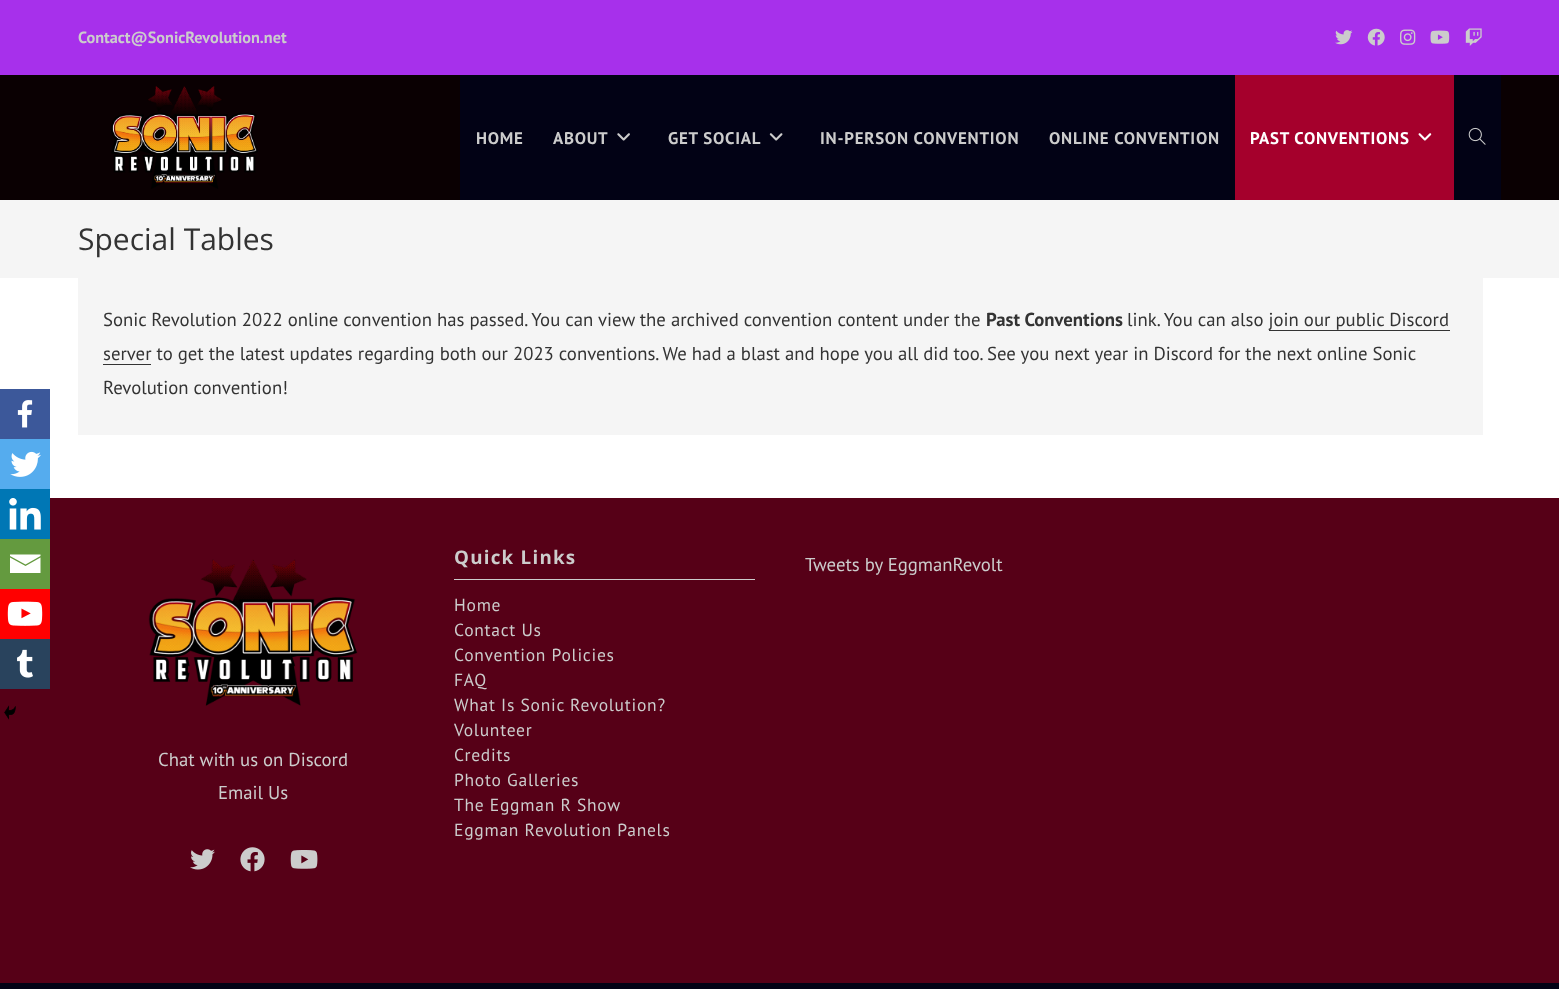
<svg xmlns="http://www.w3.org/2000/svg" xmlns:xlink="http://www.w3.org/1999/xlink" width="1559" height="989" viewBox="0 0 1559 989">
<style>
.cls-1{font:bold 16.25px PT Sans;fill:#cccccc}
.cls-2{font:bold 16.9px PT Sans;letter-spacing:0.75px;fill:#cccccc}
.cls-3{font:bold 16.9px PT Sans;letter-spacing:0.75px;fill:#ffffff}
.cls-4{font:30px Open Sans;fill:#333333}
.cls-5{font:18.75px PT Sans;fill:#333333}
.cls-6{font:bold 18.75px PT Sans;fill:#333333}
.cls-7{font:bold 18.75px Open Sans;letter-spacing:1.25px;fill:#cccccc}
.cls-8{font:17.5px PT Sans;letter-spacing:0.75px;fill:#cccccc}
.cls-9{font:18.75px PT Sans;fill:#cccccc}
</style>
<rect width="100%" height="100%" fill="#ffffff"/>
<rect fill="#a730eb" x="0" y="0" width="1559" height="75"/>
<image xlink:href="image0.png" x="1335" y="30" width="18" height="15"/>
<image xlink:href="image1.png" x="1367" y="28" width="18" height="18"/>
<image xlink:href="image2.png" x="1400" y="29" width="16" height="16"/>
<image xlink:href="image3.png" x="1430" y="30" width="20" height="14"/>
<image xlink:href="image4.png" x="1465" y="28" width="17" height="18"/>
<rect fill="#0a0002" x="0" y="75" width="1559" height="125"/>
<image xlink:href="image5.png" x="111" y="86" width="147" height="103"/>
<rect fill="#020215" x="460" y="75" width="775" height="125"/>
<image xlink:href="image6.png" x="617" y="133" width="13" height="8"/>
<image xlink:href="image7.png" x="769" y="133" width="14" height="8"/>
<rect fill="#a5002c" x="1235" y="75" width="219" height="125"/>
<image xlink:href="image8.png" x="1418" y="133" width="14" height="8"/>
<rect fill="#020215" x="1454" y="75" width="47" height="125"/>
<image xlink:href="image9.png" x="1468" y="127" width="18" height="18"/>
<rect fill="#f5f5f5" x="0" y="200" width="1559" height="78"/>
<rect fill="#f5f5f5" x="78" y="278" width="1405" height="157"/>
<rect fill="#333333" x="1269" y="330" width="181" height="1"/>
<rect fill="#333333" x="103" y="364" width="48" height="1"/>
<rect fill="#3c589a" x="0" y="389" width="50" height="50"/>
<image xlink:href="image10.png" x="17" y="400" width="16" height="28"/>
<rect fill="#55acee" x="0" y="439" width="50" height="50"/>
<image xlink:href="image11.png" x="10" y="451" width="31" height="26"/>
<rect fill="#560017" x="0" y="498" width="1559" height="485"/>
<rect fill="#0077b5" x="0" y="489" width="50" height="50"/>
<image xlink:href="image12.png" x="9" y="498" width="32" height="32"/>
<rect fill="#649a3f" x="0" y="539" width="50" height="50"/>
<path fill="#ffffff" d="M8.5 554.5H40.5V556L25.5 564.5L10 556V554.5M10 557.5L25.5 566L40.5 557.5V573H10V557.5"/>
<rect fill="#ff0000" x="0" y="589" width="50" height="50"/>
<image xlink:href="image13.png" x="7" y="601" width="36" height="25"/>
<rect fill="#29435d" x="0" y="639" width="50" height="50"/>
<image xlink:href="image14.png" x="17" y="649" width="16" height="29"/>
<image xlink:href="image15.png" x="4" y="705" width="12" height="15"/>
<rect fill="#cccccc" x="454" y="579" width="301" height="1"/>
<image xlink:href="image16.png" x="148" y="559" width="210" height="147"/>
<image xlink:href="image17.png" x="190" y="849" width="25" height="21"/>
<image xlink:href="image18.png" x="240" y="847" width="25" height="25"/>
<image xlink:href="image19.png" x="290" y="850" width="28" height="19"/>
<rect fill="#020215" x="0" y="983" width="1559" height="6"/>
<text class="cls-1" x="78" y="43">Contact@SonicRevolution.net</text>
<text class="cls-2" x="476" y="144">HOME</text>
<text class="cls-2" x="553" y="144">ABOUT</text>
<text class="cls-2" x="668" y="144">GET SOCIAL</text>
<text class="cls-2" x="820" y="144">IN-PERSON CONVENTION</text>
<text class="cls-2" x="1049" y="144">ONLINE CONVENTION</text>
<text class="cls-3" x="1250" y="144">PAST CONVENTIONS</text>
<text class="cls-4" x="78" y="250">Special Tables</text>
<text class="cls-5" x="103" y="326">Sonic Revolution 2022 online convention has passed. You can view the archived convention content under the</text>
<text class="cls-6" x="986" y="326">Past Conventions</text>
<text class="cls-5" x="1127" y="326">link. You can also join our public Discord</text>
<text class="cls-5"><tspan x="103" y="360">server to get the latest updates regarding both our 2023 conventions. We had a blast and hope you all did too. See you next year in Discord for the next online Sonic</tspan><tspan x="103" y="394">Revolution convention!</tspan></text>
<text class="cls-7" x="454" y="564">Quick Links</text>
<text class="cls-8"><tspan x="454" y="611">Home</tspan><tspan x="454" y="636">Contact Us</tspan><tspan x="454" y="661">Convention Policies</tspan><tspan x="454" y="686">FAQ</tspan><tspan x="454" y="711">What Is Sonic Revolution?</tspan><tspan x="454" y="736">Volunteer</tspan><tspan x="454" y="761">Credits</tspan><tspan x="454" y="786">Photo Galleries</tspan><tspan x="454" y="811">The Eggman R Show</tspan><tspan x="454" y="836">Eggman Revolution Panels</tspan></text>
<text class="cls-9" x="805" y="571">Tweets by EggmanRevolt</text>
<text class="cls-9" x="158" y="766">Chat with us on Discord</text>
<text class="cls-9" x="218" y="799">Email Us</text>
</svg>
